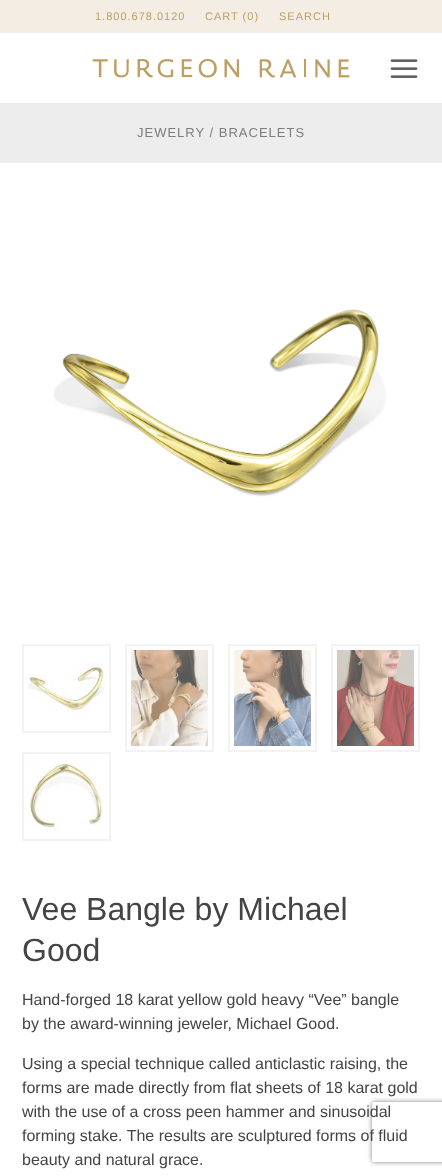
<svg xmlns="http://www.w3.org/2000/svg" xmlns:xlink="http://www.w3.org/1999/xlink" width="442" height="1176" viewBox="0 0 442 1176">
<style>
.cls-1{font:11px Liberation Sans;letter-spacing:1px;fill:#bc9f63}
.cls-2{font:13px Liberation Sans;letter-spacing:1px;fill:#7d7d7d}
.cls-3{font:32px Liberation Sans;fill:#444444}
.cls-4{font:16px Liberation Sans;fill:#444444}
</style>
<defs>
<clipPath id="clip1"><path d="M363 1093H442V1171H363ZM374 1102H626C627 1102 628 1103 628 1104V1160C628 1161 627 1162 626 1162H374C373 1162 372 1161 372 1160V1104C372 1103 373 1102 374 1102Z" clip-rule="evenodd"/></clipPath>
</defs>
<rect width="100%" height="100%" fill="#ffffff"/>
<rect fill="#f3ede4" x="0" y="0" width="442" height="33"/>
<image xlink:href="image0.png" x="92" y="59" width="258" height="19"/>
<image xlink:href="image1.png" x="390" y="59" width="28" height="19"/>
<rect fill="#ededed" x="0" y="103" width="442" height="60"/>
<image xlink:href="image2.png" x="54" y="309" width="332" height="188"/>
<rect fill="none" stroke="#f3f3f3" stroke-width="2" x="23" y="645" width="87" height="87"/>
<image xlink:href="image3.png" x="28" y="662" width="77" height="50"/>
<rect fill="none" stroke="#f3f3f3" stroke-width="2" x="126" y="645" width="87" height="106"/>
<image xlink:href="image4.png" x="131" y="650" width="77" height="96"/>
<rect fill="none" stroke="#f3f3f3" stroke-width="2" x="229" y="645" width="87" height="106"/>
<image xlink:href="image5.png" x="234" y="650" width="77" height="96"/>
<rect fill="none" stroke="#f3f3f3" stroke-width="2" x="332" y="645" width="87" height="106"/>
<image xlink:href="image6.png" x="337" y="650" width="77" height="96"/>
<rect fill="none" stroke="#f3f3f3" stroke-width="2" x="23" y="753" width="87" height="87"/>
<image xlink:href="image7.png" x="28" y="758" width="75" height="74"/>
<g clip-path="url(#clip1)">
<rect fill="#808080" filter="blur(2.5px)" x="372" y="1102" width="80" height="60" rx="2"/>
</g>
<text class="cls-1" x="95" y="20">1.800.678.0120</text>
<text class="cls-1" x="205" y="20">CART (0)</text>
<text class="cls-1" x="279" y="20">SEARCH</text>
<text class="cls-2" x="137" y="137">JEWELRY / BRACELETS</text>
<text class="cls-3"><tspan x="22" y="920">Vee Bangle by Michael</tspan><tspan x="22" y="961">Good</tspan></text>
<text class="cls-4"><tspan x="22" y="1005">Hand-forged 18 karat yellow gold heavy “Vee” bangle</tspan><tspan x="22" y="1029">by the award-winning jeweler, Michael Good.</tspan></text>
<text class="cls-4"><tspan x="22" y="1069">Using a special technique called anticlastic raising, the</tspan><tspan x="22" y="1093">forms are made directly from flat sheets of 18 karat gold</tspan><tspan x="22" y="1117">with the use of a cross peen hammer and sinusoidal</tspan><tspan x="22" y="1141">forming stake. The results are sculptured forms of fluid</tspan><tspan x="22" y="1165">beauty and natural grace.</tspan></text>
</svg>
